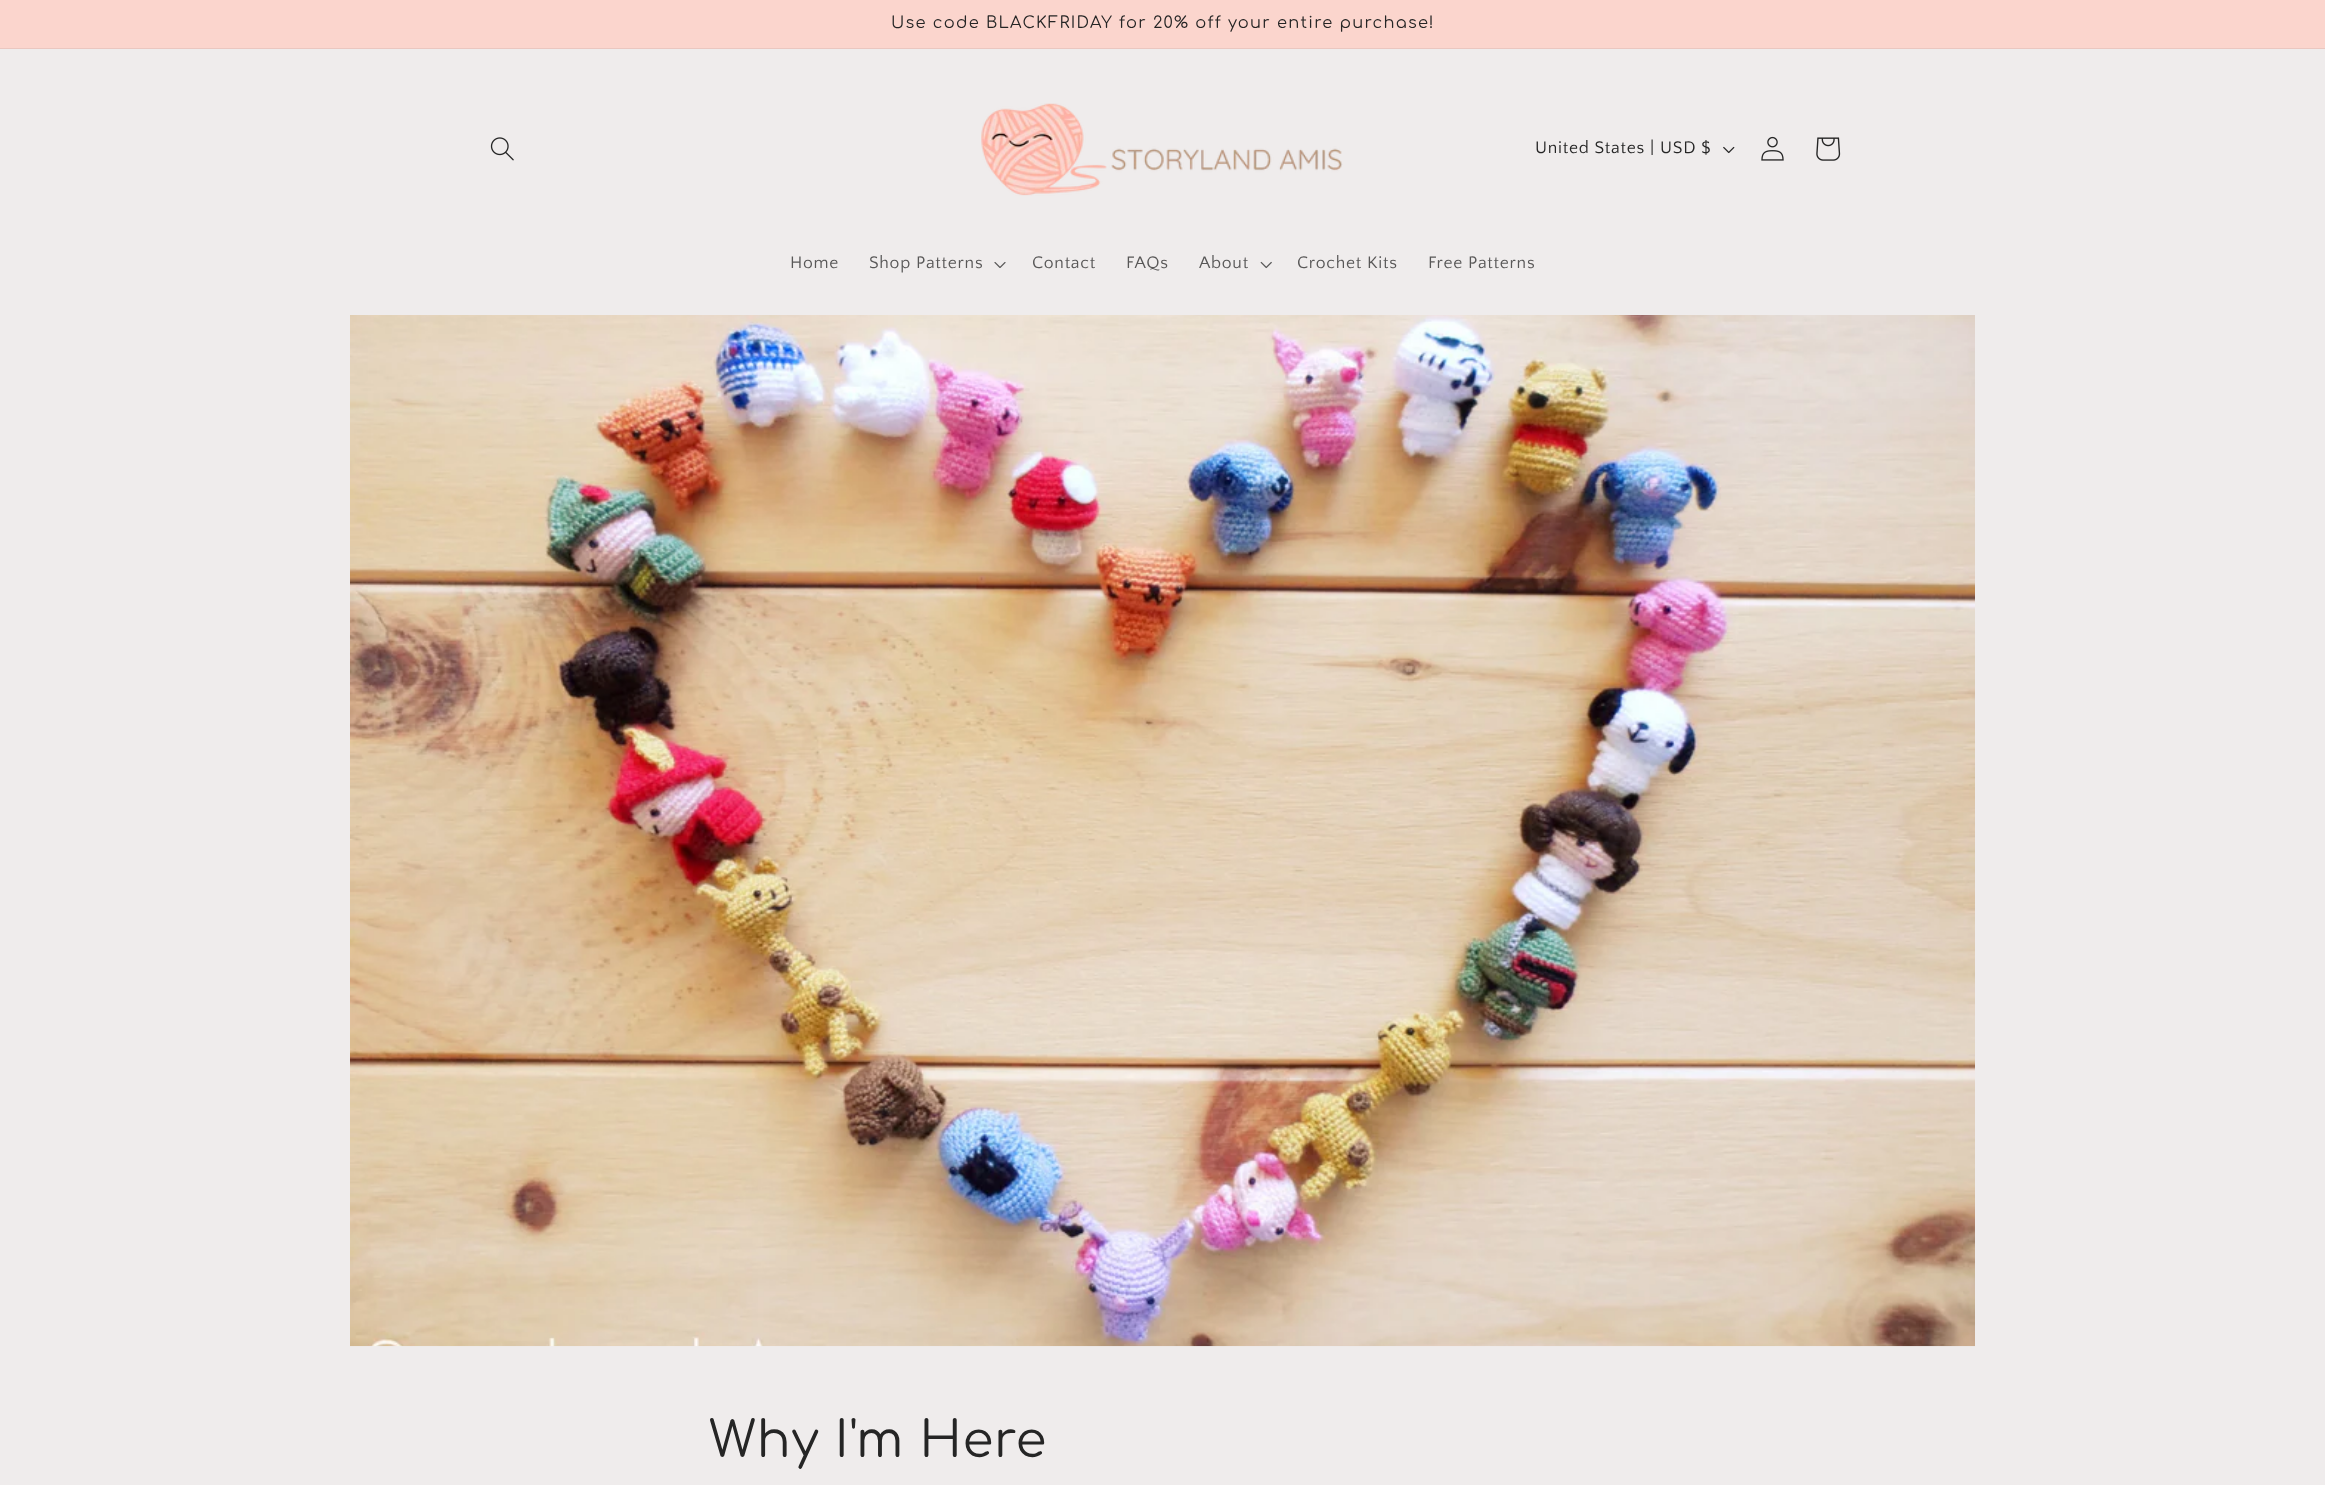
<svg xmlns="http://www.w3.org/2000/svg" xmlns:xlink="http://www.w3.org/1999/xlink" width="2325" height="1485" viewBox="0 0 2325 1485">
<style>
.cls-1{font:16.25px Comfortaa;letter-spacing:1.25px;fill:#252525}
.cls-2{font:17.5px Quattrocento Sans;letter-spacing:0.75px;fill:#252525}
.cls-3{font:17.5px Quattrocento Sans;letter-spacing:0.75px;fill:#585757}
.cls-4{font:50px Comfortaa;letter-spacing:0.75px;fill:#252525}
</style>
<rect width="100%" height="100%" fill="#efecec"/>
<rect fill="#fbd5cd" x="0" y="0" width="2325" height="48"/>
<rect fill="#eac7c0" x="0" y="48" width="2325" height="1"/>
<image xlink:href="image0.png" x="490" y="137" width="24" height="24"/>
<image xlink:href="image1.png" x="981" y="103" width="362" height="93"/>
<image xlink:href="image2.png" x="1723" y="146" width="12" height="8"/>
<image xlink:href="image3.png" x="1761" y="136" width="23" height="25"/>
<image xlink:href="image4.png" x="1816" y="137" width="25" height="24"/>
<image xlink:href="image5.png" x="994" y="262" width="12" height="6"/>
<image xlink:href="image6.png" x="1260" y="261" width="12" height="8"/>
<image xlink:href="image7.png" x="350" y="315" width="1625" height="1032"/>
<text class="cls-1" x="891" y="28">Use code BLACKFRIDAY for 20% off your entire purchase!</text>
<text class="cls-2" x="1535" y="153">United States | USD $</text>
<text class="cls-3" x="790" y="268">Home</text>
<text class="cls-3" x="869" y="268">Shop Patterns</text>
<text class="cls-3" x="1032" y="268">Contact</text>
<text class="cls-3" x="1126" y="268">FAQs</text>
<text class="cls-3" x="1199" y="268">About</text>
<text class="cls-3" x="1297" y="268">Crochet Kits</text>
<text class="cls-3" x="1428" y="268">Free Patterns</text>
<text class="cls-4" x="709" y="1457">Why I'm Here</text>
</svg>
